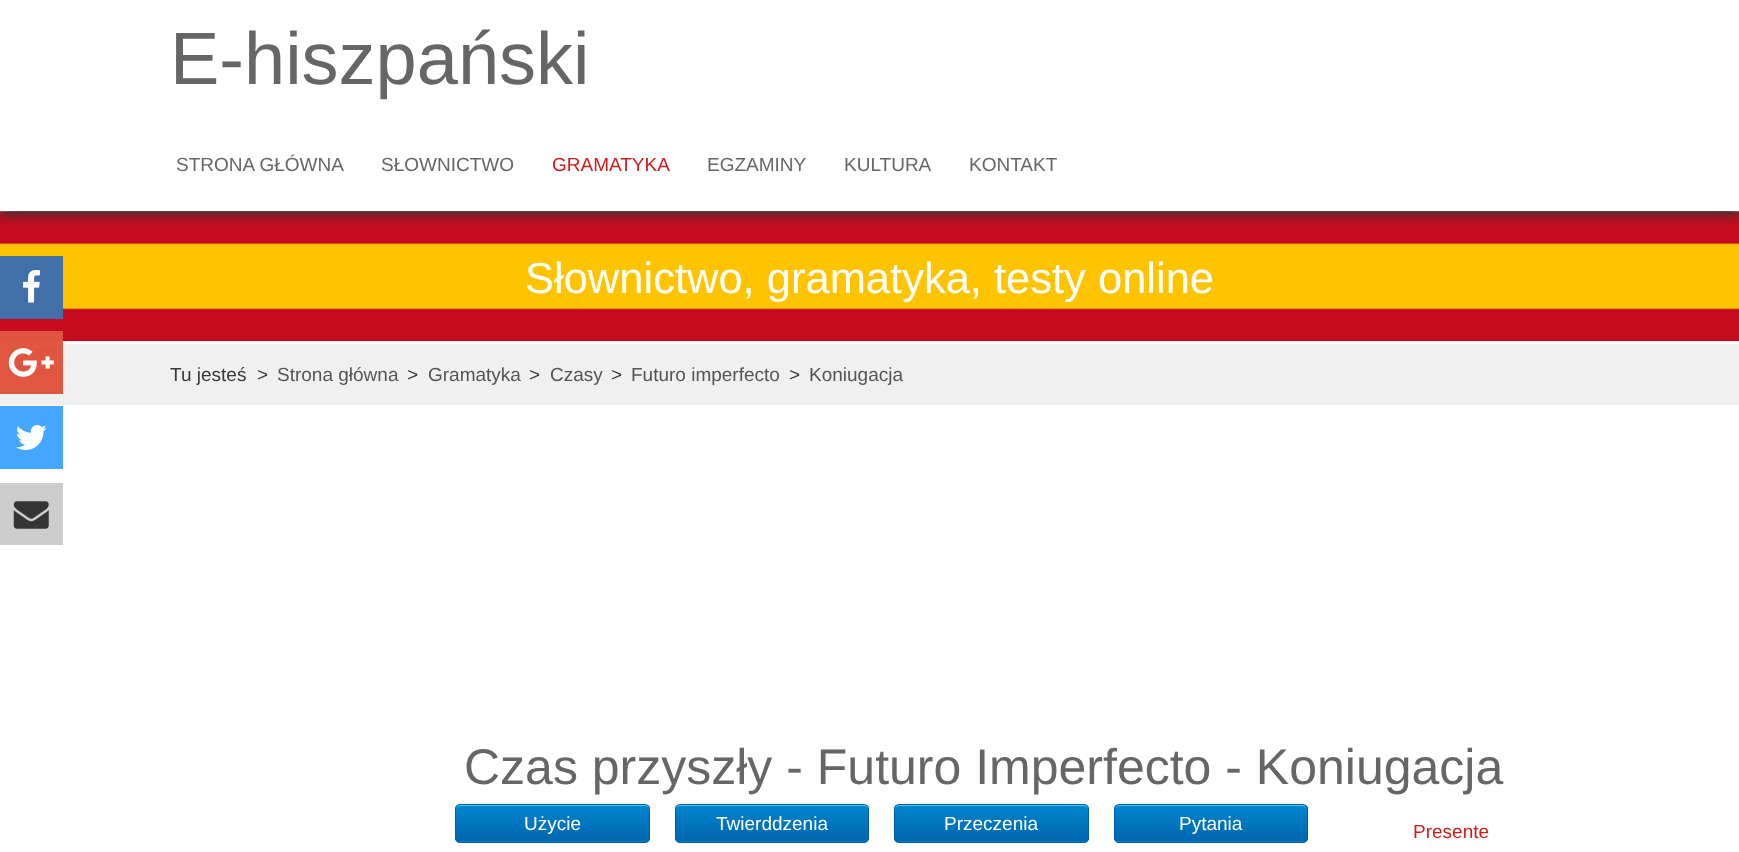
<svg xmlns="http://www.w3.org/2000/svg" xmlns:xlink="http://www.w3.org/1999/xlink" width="1739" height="852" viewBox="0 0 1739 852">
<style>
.cls-1{font:74px Liberation Sans;fill:#666666}
.cls-2{font:19px Liberation Sans;fill:#666666}
.cls-3{font:19px Liberation Sans;fill:#cf1c1a}
.cls-4{font:43.5px Liberation Sans;fill:#ffffff}
.cls-5{font:19px Liberation Sans;fill:#373a3c}
.cls-6{font:19px Liberation Sans;fill:#555555}
.cls-7{font:50px Liberation Sans;fill:#666666}
.cls-8{font:19px Liberation Sans;fill:#ffffff}
</style>
<defs>
<clipPath id="clip1"><rect x="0" y="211" width="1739" height="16"/></clipPath>
<clipPath id="clip2"><rect x="455" y="804" width="195" height="39" rx="5"/></clipPath>
<linearGradient id="g1" gradientUnits="userSpaceOnUse" x1="456" y1="805" x2="456" y2="841"><stop offset="0.05" stop-color="#0084cc"/><stop offset="1" stop-color="#0066ae"/></linearGradient>
<linearGradient id="g2" gradientUnits="userSpaceOnUse" x1="456" y1="841" x2="456" y2="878"><stop offset="0.05" stop-color="#0084cc"/><stop offset="1" stop-color="#0066ae"/></linearGradient>
<clipPath id="clip3"><rect x="675" y="804" width="194" height="39" rx="5"/></clipPath>
<linearGradient id="g3" gradientUnits="userSpaceOnUse" x1="676" y1="805" x2="676" y2="841"><stop offset="0.05" stop-color="#0084cc"/><stop offset="1" stop-color="#0066ae"/></linearGradient>
<linearGradient id="g4" gradientUnits="userSpaceOnUse" x1="676" y1="841" x2="676" y2="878"><stop offset="0.05" stop-color="#0084cc"/><stop offset="1" stop-color="#0066ae"/></linearGradient>
<clipPath id="clip4"><rect x="894" y="804" width="195" height="39" rx="5"/></clipPath>
<linearGradient id="g5" gradientUnits="userSpaceOnUse" x1="895" y1="805" x2="895" y2="841"><stop offset="0.05" stop-color="#0084cc"/><stop offset="1" stop-color="#0066ae"/></linearGradient>
<linearGradient id="g6" gradientUnits="userSpaceOnUse" x1="895" y1="841" x2="895" y2="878"><stop offset="0.05" stop-color="#0084cc"/><stop offset="1" stop-color="#0066ae"/></linearGradient>
<clipPath id="clip5"><rect x="1114" y="804" width="194" height="39" rx="5"/></clipPath>
<linearGradient id="g7" gradientUnits="userSpaceOnUse" x1="1115" y1="805" x2="1115" y2="841"><stop offset="0.05" stop-color="#0084cc"/><stop offset="1" stop-color="#0066ae"/></linearGradient>
<linearGradient id="g8" gradientUnits="userSpaceOnUse" x1="1115" y1="841" x2="1115" y2="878"><stop offset="0.05" stop-color="#0084cc"/><stop offset="1" stop-color="#0066ae"/></linearGradient>
</defs>
<rect width="100%" height="100%" fill="#ffffff"/>
<image xlink:href="image4.png" x="0" y="211" width="1739" height="131"/>
<rect fill="#406fac" fill-opacity="0.99" x="0" y="256" width="63" height="63"/>
<image xlink:href="image0.png" x="23" y="270" width="17" height="33"/>
<rect fill="#f0f0f0" x="0" y="344" width="1739" height="61"/>
<rect fill="#e15540" fill-opacity="0.99" x="0" y="331" width="63" height="63"/>
<image xlink:href="image1.png" x="8" y="348" width="46" height="29"/>
<rect fill="#44a6fd" x="0" y="406" width="63" height="63"/>
<image xlink:href="image2.png" x="16" y="425" width="31" height="25"/>
<rect fill="#cdcdcd" x="0" y="483" width="63" height="62"/>
<image xlink:href="image3.png" x="13" y="501" width="36" height="28"/>
<g clip-path="url(#clip1)">
<rect fill="#333333" filter="blur(6px)" x="0" y="4" width="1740" height="211"/>
</g>
<g clip-path="url(#clip2)">
<rect fill="url(#g1)" x="455" y="805" width="195" height="36"/>
<rect fill="url(#g2)" x="455" y="841" width="195" height="2"/>
</g>
<path fill="#46caff" d="M460 806H645C647 806 649 808 649 810V809C649 807 647 805 645 805H460C458 805 456 807 456 809V810C456 808 458 806 460 806Z"/>
<rect fill="none" stroke="#005ca4" x="455.5" y="804.5" width="194" height="38" rx="4.5"/>
<g clip-path="url(#clip3)">
<rect fill="url(#g3)" x="675" y="805" width="194" height="36"/>
<rect fill="url(#g4)" x="675" y="841" width="194" height="2"/>
</g>
<path fill="#46caff" d="M680 806H864C866 806 868 808 868 810C868 807 867 805 864 805H680C677 805 676 807 676 810C676 808 678 806 680 806Z"/>
<rect fill="none" stroke="#005ca4" x="675.5" y="804.5" width="193" height="38" rx="4.5"/>
<g clip-path="url(#clip4)">
<rect fill="url(#g5)" x="894" y="805" width="195" height="36"/>
<rect fill="url(#g6)" x="894" y="841" width="195" height="2"/>
</g>
<path fill="#46caff" d="M899 806H1084C1086 806 1088 808 1088 810V809C1088 807 1086 805 1084 805H899C897 805 895 807 895 809V810C895 808 897 806 899 806Z"/>
<rect fill="none" stroke="#005ca4" x="894.5" y="804.5" width="194" height="38" rx="4.5"/>
<g clip-path="url(#clip5)">
<rect fill="url(#g7)" x="1114" y="805" width="194" height="36"/>
<rect fill="url(#g8)" x="1114" y="841" width="194" height="2"/>
</g>
<path fill="#46caff" d="M1119 806H1302C1305 806 1306 808 1306 810C1306 807 1305 805 1302 805H1118C1116 806 1115 808 1115 810C1115 808 1117 806 1119 806Z"/>
<rect fill="none" stroke="#005ca4" x="1114.5" y="804.5" width="193" height="38" rx="4.5"/>
<rect fill="#406fac" fill-opacity="0.99" x="23" y="270" width="17" height="33"/>
<image xlink:href="image5.png" x="23" y="270" width="17" height="33"/>
<rect fill="#e15540" fill-opacity="0.99" x="8" y="348" width="46" height="29"/>
<image xlink:href="image6.png" x="8" y="348" width="46" height="29"/>
<image xlink:href="image7.png" x="16" y="425" width="31" height="25"/>
<image xlink:href="image8.png" x="13" y="501" width="36" height="28"/>
<text class="cls-1" x="170" y="84">E-hiszpański</text>
<text class="cls-2" x="176" y="171">STRONA GŁÓWNA</text>
<text class="cls-2" x="381" y="171">SŁOWNICTWO</text>
<text class="cls-3" x="552" y="171">GRAMATYKA</text>
<text class="cls-2" x="707" y="171">EGZAMINY</text>
<text class="cls-2" x="844" y="171">KULTURA</text>
<text class="cls-2" x="969" y="171">KONTAKT</text>
<text class="cls-4" x="525" y="293">Słownictwo, gramatyka, testy online</text>
<text class="cls-5" x="170" y="381">Tu jesteś</text>
<text class="cls-5" x="257" y="381">&gt;</text>
<text class="cls-6" x="277" y="381">Strona główna</text>
<text class="cls-5" x="407" y="381">&gt;</text>
<text class="cls-6" x="428" y="381">Gramatyka</text>
<text class="cls-5" x="529" y="381">&gt;</text>
<text class="cls-6" x="550" y="381">Czasy</text>
<text class="cls-5" x="611" y="381">&gt;</text>
<text class="cls-6" x="631" y="381">Futuro imperfecto</text>
<text class="cls-5" x="789" y="381">&gt;</text>
<text class="cls-6" x="809" y="381">Koniugacja</text>
<text class="cls-7" x="464" y="784">Czas przyszły - Futuro Imperfecto - Koniugacja</text>
<text class="cls-8" x="524" y="830">Użycie</text>
<text class="cls-8" x="716" y="830">Twierddzenia</text>
<text class="cls-8" x="944" y="830">Przeczenia</text>
<text class="cls-8" x="1179" y="830">Pytania</text>
<text class="cls-3" x="1413" y="838">Presente</text>
</svg>
